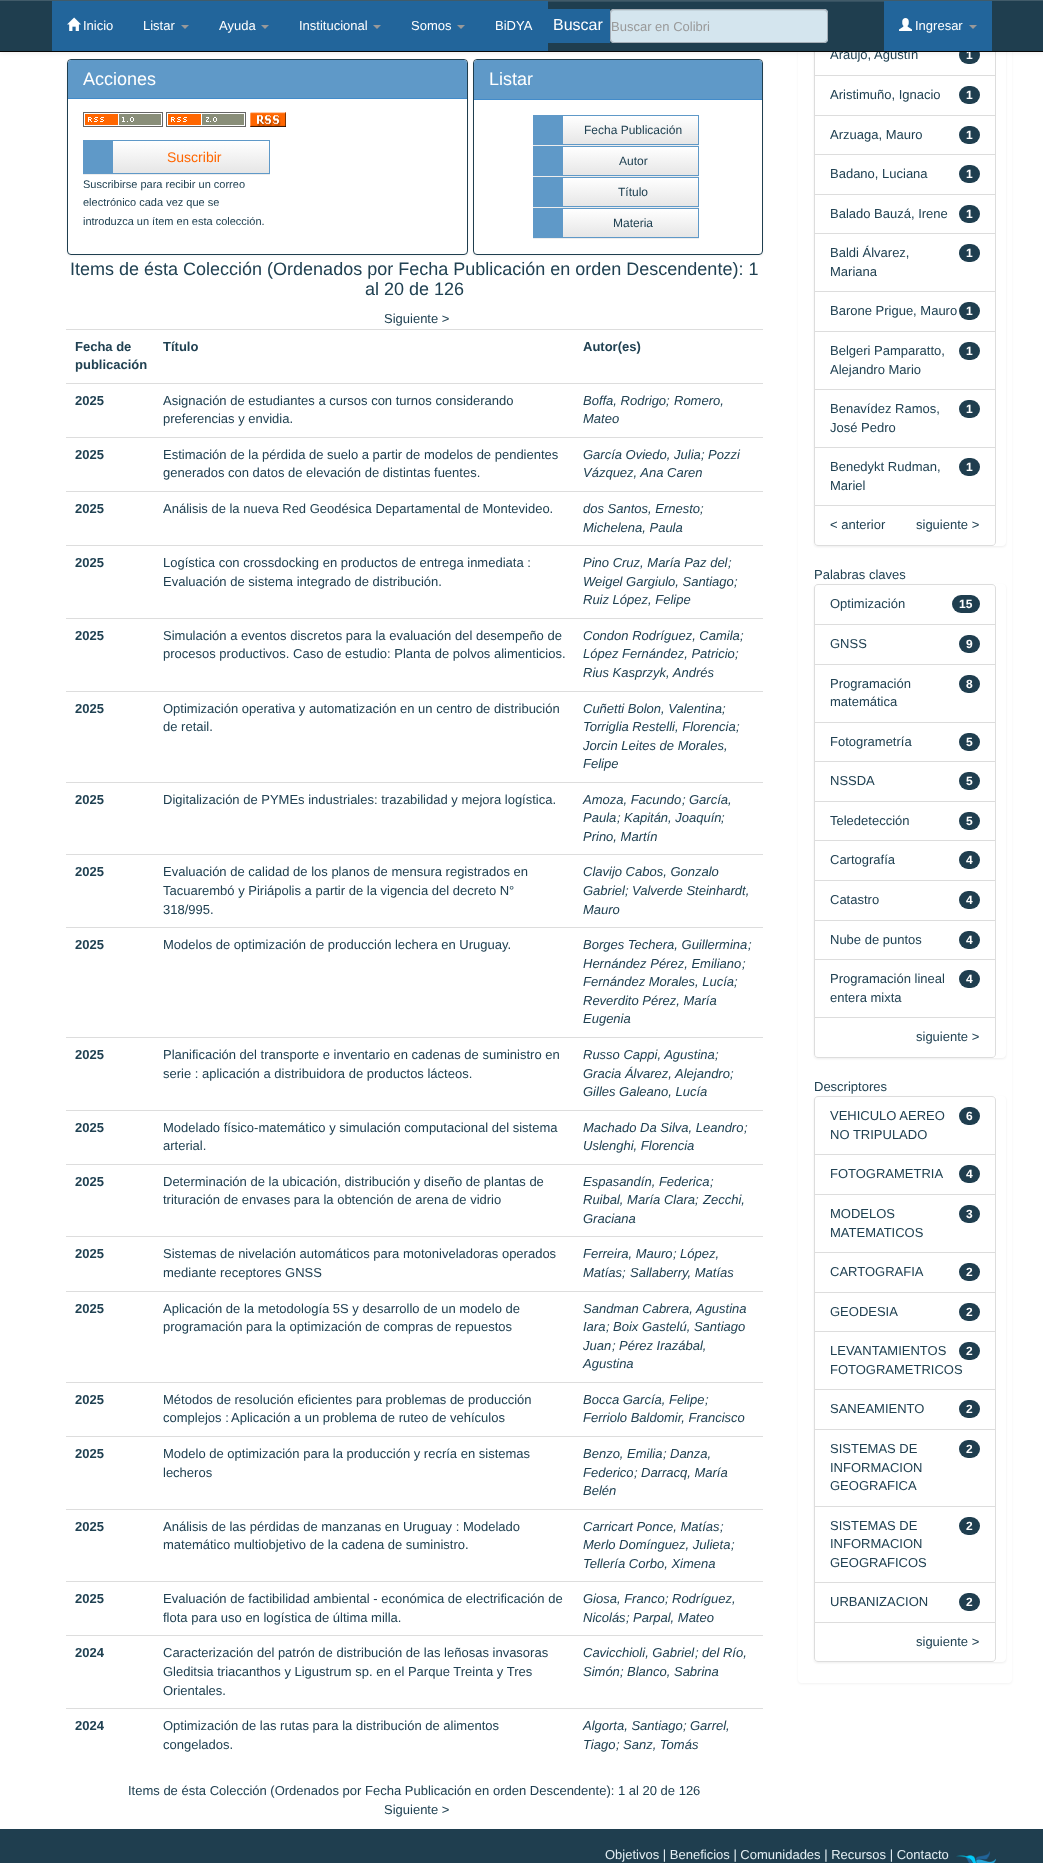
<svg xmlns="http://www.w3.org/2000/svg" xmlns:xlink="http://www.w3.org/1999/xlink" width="1043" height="1863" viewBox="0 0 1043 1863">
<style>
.cls-1{font:18px Liberation Sans;fill:#ffffff}
.cls-2{font:14px Liberation Sans;fill:#ff6600}
.cls-3{font:11px Liberation Sans;fill:#204152}
.cls-4{font:12px Liberation Sans;fill:#204152}
.cls-5{font:18px Liberation Sans;fill:#204152}
.cls-6{font:13px Liberation Sans;fill:#204152}
.cls-7{font:bold 13px Liberation Sans;fill:#204152}
.cls-8{font:italic 13px Liberation Sans;fill:#204152}
.cls-9{font:bold 12px Liberation Sans;fill:#ffffff}
.cls-10{font:13px Liberation Sans;fill:#999999}
.cls-11{font:16px Liberation Sans;fill:#ffffff}
.cls-12{font:13px Liberation Sans;fill:#ffffff}
.cls-13{font:13px Liberation Sans;fill:#e4eff4}
</style>
<defs>
<clipPath id="clip1"><path d="M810 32H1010V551H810ZM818 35H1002C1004 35 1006 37 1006 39V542C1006 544 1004 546 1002 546H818C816 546 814 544 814 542V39C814 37 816 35 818 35Z" clip-rule="evenodd"/></clipPath>
<linearGradient id="g1" gradientUnits="userSpaceOnUse" x1="191" y1="141" x2="191" y2="173"><stop offset="0" stop-color="#ffffff"/><stop offset="1" stop-color="#e6e6e6"/></linearGradient>
<linearGradient id="g2" gradientUnits="userSpaceOnUse" x1="631" y1="116" x2="631" y2="144"><stop offset="0" stop-color="#ffffff"/><stop offset="1" stop-color="#e6e6e6"/></linearGradient>
<linearGradient id="g3" gradientUnits="userSpaceOnUse" x1="631" y1="147" x2="631" y2="175"><stop offset="0" stop-color="#ffffff"/><stop offset="1" stop-color="#e6e6e6"/></linearGradient>
<linearGradient id="g4" gradientUnits="userSpaceOnUse" x1="631" y1="178" x2="631" y2="206"><stop offset="0" stop-color="#ffffff"/><stop offset="1" stop-color="#e6e6e6"/></linearGradient>
<linearGradient id="g5" gradientUnits="userSpaceOnUse" x1="631" y1="209" x2="631" y2="237"><stop offset="0" stop-color="#ffffff"/><stop offset="1" stop-color="#e6e6e6"/></linearGradient>
<clipPath id="clip2"><path d="M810 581H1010V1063H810ZM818 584H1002C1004 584 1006 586 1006 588V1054C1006 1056 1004 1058 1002 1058H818C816 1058 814 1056 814 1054V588C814 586 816 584 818 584Z" clip-rule="evenodd"/></clipPath>
<clipPath id="clip3"><path d="M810 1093H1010V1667H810ZM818 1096H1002C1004 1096 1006 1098 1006 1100V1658C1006 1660 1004 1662 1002 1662H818C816 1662 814 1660 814 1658V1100C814 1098 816 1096 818 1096Z" clip-rule="evenodd"/></clipPath>
</defs>
<rect width="100%" height="100%" fill="#ffffff"/>
<rect fill="#000000" fill-opacity="0.05" filter="blur(1px)" x="67" y="60" width="401" height="196" rx="4"/>
<rect fill="#ffffff" stroke="#1f3e4f" x="67.5" y="59.5" width="400" height="195" rx="3.5"/>
<path fill="#5f99c8" d="M71 60H464C465.5 60 467 61.5 467 63V99H68V63C68 61.5 69.5 60 71 60Z"/>
<rect fill="#000000" fill-opacity="0.05" filter="blur(1px)" x="473" y="60" width="290" height="196" rx="4"/>
<rect fill="#ffffff" stroke="#1f3e4f" x="473.5" y="59.5" width="289" height="195" rx="3.5"/>
<path fill="#5f99c8" d="M477 60H759C760.5 60 762 61.5 762 63V100H474V63C474 61.5 475.5 60 477 60Z"/>
<rect fill="#000000" fill-opacity="0.05" filter="blur(1px)" x="798" y="17" width="214" height="1667" rx="4"/>
<rect fill="#ffffff" x="798" y="16" width="214" height="1667" rx="4"/>
<g clip-path="url(#clip1)">
<rect fill="#000000" fill-opacity="0.07" filter="blur(1px)" x="814" y="36" width="192" height="511" rx="4"/>
</g>
<rect fill="none" stroke="#dddddd" x="814.5" y="35.5" width="181" height="40"/>
<rect fill="#1f3e4f" x="959" y="46" width="21" height="18" rx="9"/>
<rect fill="#000000" fill-opacity="0.07" filter="blur(2.5px)" x="0" y="1" width="1043" height="52"/>
<rect fill="#415b69" x="0" y="0" width="1043" height="1"/>
<rect fill="#428bca" x="68" y="98" width="399" height="1"/>
<image xlink:href="image2.png" x="83" y="112" width="80" height="15"/>
<image xlink:href="image3.png" x="166" y="112" width="80" height="15"/>
<image xlink:href="image4.png" x="250" y="112" width="36" height="15"/>
<rect fill="#000000" fill-opacity="0.07" filter="blur(0.5px)" x="83" y="141" width="187" height="34"/>
<rect fill="url(#g1)" x="113" y="141" width="156" height="32"/>
<rect fill="#5f99c8" x="113" y="140" width="157" height="1"/>
<rect fill="#5f99c8" x="269" y="140" width="1" height="34"/>
<rect fill="#5f99c8" x="113" y="173" width="157" height="1"/>
<rect fill="#5f99c8" x="83" y="140" width="30" height="34"/>
<rect fill="#428bca" x="474" y="99" width="288" height="1"/>
<rect fill="#000000" fill-opacity="0.07" filter="blur(0.5px)" x="533" y="116" width="166" height="30"/>
<rect fill="url(#g2)" x="563" y="116" width="135" height="28"/>
<rect fill="#5f99c8" x="563" y="115" width="136" height="1"/>
<rect fill="#5f99c8" x="698" y="115" width="1" height="30"/>
<rect fill="#5f99c8" x="563" y="144" width="136" height="1"/>
<rect fill="#5f99c8" x="533" y="115" width="30" height="30"/>
<rect fill="#000000" fill-opacity="0.07" filter="blur(0.5px)" x="533" y="147" width="166" height="30"/>
<rect fill="url(#g3)" x="563" y="147" width="135" height="28"/>
<rect fill="#5f99c8" x="563" y="146" width="136" height="1"/>
<rect fill="#5f99c8" x="698" y="146" width="1" height="30"/>
<rect fill="#5f99c8" x="563" y="175" width="136" height="1"/>
<rect fill="#5f99c8" x="533" y="146" width="30" height="30"/>
<rect fill="#000000" fill-opacity="0.07" filter="blur(0.5px)" x="533" y="178" width="166" height="30"/>
<rect fill="url(#g4)" x="563" y="178" width="135" height="28"/>
<rect fill="#5f99c8" x="563" y="177" width="136" height="1"/>
<rect fill="#5f99c8" x="698" y="177" width="1" height="30"/>
<rect fill="#5f99c8" x="563" y="206" width="136" height="1"/>
<rect fill="#5f99c8" x="533" y="177" width="30" height="30"/>
<rect fill="#000000" fill-opacity="0.07" filter="blur(0.5px)" x="533" y="209" width="166" height="30"/>
<rect fill="url(#g5)" x="563" y="209" width="135" height="28"/>
<rect fill="#5f99c8" x="563" y="208" width="136" height="1"/>
<rect fill="#5f99c8" x="698" y="208" width="1" height="30"/>
<rect fill="#5f99c8" x="563" y="237" width="136" height="1"/>
<rect fill="#5f99c8" x="533" y="208" width="30" height="30"/>
<rect fill="#dddddd" x="66" y="329" width="697" height="1"/>
<rect fill="#dddddd" x="66" y="383" width="697" height="1"/>
<rect fill="#dddddd" x="66" y="437" width="697" height="1"/>
<rect fill="#dddddd" x="66" y="491" width="697" height="1"/>
<rect fill="#dddddd" x="66" y="545" width="697" height="1"/>
<rect fill="#dddddd" x="66" y="618" width="697" height="1"/>
<rect fill="#dddddd" x="66" y="691" width="697" height="1"/>
<rect fill="#dddddd" x="66" y="782" width="697" height="1"/>
<rect fill="#dddddd" x="66" y="854" width="697" height="1"/>
<rect fill="#dddddd" x="66" y="927" width="697" height="1"/>
<rect fill="#dddddd" x="66" y="1037" width="697" height="1"/>
<rect fill="#dddddd" x="66" y="1110" width="697" height="1"/>
<rect fill="#dddddd" x="66" y="1164" width="697" height="1"/>
<rect fill="#dddddd" x="66" y="1236" width="697" height="1"/>
<rect fill="#dddddd" x="66" y="1291" width="697" height="1"/>
<rect fill="#dddddd" x="66" y="1382" width="697" height="1"/>
<rect fill="#dddddd" x="66" y="1436" width="697" height="1"/>
<rect fill="#dddddd" x="66" y="1509" width="697" height="1"/>
<rect fill="#dddddd" x="66" y="1581" width="697" height="1"/>
<rect fill="#dddddd" x="66" y="1635" width="697" height="1"/>
<rect fill="#dddddd" x="66" y="1708" width="697" height="1"/>
<rect fill="none" stroke="#dddddd" x="814.5" y="75.5" width="181" height="40"/>
<rect fill="#1f3e4f" x="959" y="86" width="21" height="18" rx="9"/>
<rect fill="none" stroke="#dddddd" x="814.5" y="115.5" width="181" height="39"/>
<rect fill="#1f3e4f" x="959" y="126" width="21" height="18" rx="9"/>
<rect fill="none" stroke="#dddddd" x="814.5" y="154.5" width="181" height="40"/>
<rect fill="#1f3e4f" x="959" y="165" width="21" height="18" rx="9"/>
<rect fill="none" stroke="#dddddd" x="814.5" y="194.5" width="181" height="39"/>
<rect fill="#1f3e4f" x="959" y="205" width="21" height="18" rx="9"/>
<rect fill="none" stroke="#dddddd" x="814.5" y="233.5" width="181" height="58"/>
<rect fill="#1f3e4f" x="959" y="244" width="21" height="18" rx="9"/>
<rect fill="none" stroke="#dddddd" x="814.5" y="291.5" width="181" height="40"/>
<rect fill="#1f3e4f" x="959" y="302" width="21" height="18" rx="9"/>
<rect fill="none" stroke="#dddddd" x="814.5" y="331.5" width="181" height="58"/>
<rect fill="#1f3e4f" x="959" y="342" width="21" height="18" rx="9"/>
<rect fill="none" stroke="#dddddd" x="814.5" y="389.5" width="181" height="58"/>
<rect fill="#1f3e4f" x="959" y="400" width="21" height="18" rx="9"/>
<rect fill="none" stroke="#dddddd" x="814.5" y="447.5" width="181" height="58"/>
<rect fill="#1f3e4f" x="959" y="458" width="21" height="18" rx="9"/>
<path fill="#ffffff" stroke="#dddddd" d="M814.5 505.5H995.5V542C995.5 544 994 545.5 992 545.5H818C816 545.5 814.5 544 814.5 542Z"/>
<g clip-path="url(#clip2)">
<rect fill="#000000" fill-opacity="0.07" filter="blur(1px)" x="814" y="585" width="192" height="474" rx="4"/>
</g>
<path fill="none" stroke="#dddddd" d="M818 584.5H992C994 584.5 995.5 586 995.5 588V624.5H814.5V588C814.5 586 816 584.5 818 584.5Z"/>
<rect fill="#1f3e4f" x="952" y="595" width="28" height="18" rx="9"/>
<rect fill="none" stroke="#dddddd" x="814.5" y="624.5" width="181" height="40"/>
<rect fill="#1f3e4f" x="959" y="635" width="21" height="18" rx="9"/>
<rect fill="none" stroke="#dddddd" x="814.5" y="664.5" width="181" height="58"/>
<rect fill="#1f3e4f" x="959" y="675" width="21" height="18" rx="9"/>
<rect fill="none" stroke="#dddddd" x="814.5" y="722.5" width="181" height="39"/>
<rect fill="#1f3e4f" x="959" y="733" width="21" height="18" rx="9"/>
<rect fill="none" stroke="#dddddd" x="814.5" y="761.5" width="181" height="40"/>
<rect fill="#1f3e4f" x="959" y="772" width="21" height="18" rx="9"/>
<rect fill="none" stroke="#dddddd" x="814.5" y="801.5" width="181" height="39"/>
<rect fill="#1f3e4f" x="959" y="812" width="21" height="18" rx="9"/>
<rect fill="none" stroke="#dddddd" x="814.5" y="840.5" width="181" height="40"/>
<rect fill="#1f3e4f" x="959" y="851" width="21" height="18" rx="9"/>
<rect fill="none" stroke="#dddddd" x="814.5" y="880.5" width="181" height="40"/>
<rect fill="#1f3e4f" x="959" y="891" width="21" height="18" rx="9"/>
<rect fill="none" stroke="#dddddd" x="814.5" y="920.5" width="181" height="39"/>
<rect fill="#1f3e4f" x="959" y="931" width="21" height="18" rx="9"/>
<rect fill="none" stroke="#dddddd" x="814.5" y="959.5" width="181" height="58"/>
<rect fill="#1f3e4f" x="959" y="970" width="21" height="18" rx="9"/>
<path fill="#ffffff" stroke="#dddddd" d="M814.5 1017.5H995.5V1054C995.5 1056 994 1057.5 992 1057.5H818C816 1057.5 814.5 1056 814.5 1054Z"/>
<g clip-path="url(#clip3)">
<rect fill="#000000" fill-opacity="0.07" filter="blur(1px)" x="814" y="1097" width="192" height="566" rx="4"/>
</g>
<path fill="none" stroke="#dddddd" d="M818 1096.5H992C994 1096.5 995.5 1098 995.5 1100V1154.5H814.5V1100C814.5 1098 816 1096.5 818 1096.5Z"/>
<rect fill="#1f3e4f" x="959" y="1107" width="21" height="18" rx="9"/>
<rect fill="none" stroke="#dddddd" x="814.5" y="1154.5" width="181" height="40"/>
<rect fill="#1f3e4f" x="959" y="1165" width="21" height="18" rx="9"/>
<rect fill="none" stroke="#dddddd" x="814.5" y="1194.5" width="181" height="58"/>
<rect fill="#1f3e4f" x="959" y="1205" width="21" height="18" rx="9"/>
<rect fill="none" stroke="#dddddd" x="814.5" y="1252.5" width="181" height="40"/>
<rect fill="#1f3e4f" x="959" y="1263" width="21" height="18" rx="9"/>
<rect fill="none" stroke="#dddddd" x="814.5" y="1292.5" width="181" height="39"/>
<rect fill="#1f3e4f" x="959" y="1303" width="21" height="18" rx="9"/>
<rect fill="none" stroke="#dddddd" x="814.5" y="1331.5" width="181" height="58"/>
<rect fill="#1f3e4f" x="959" y="1342" width="21" height="18" rx="9"/>
<rect fill="none" stroke="#dddddd" x="814.5" y="1389.5" width="181" height="40"/>
<rect fill="#1f3e4f" x="959" y="1400" width="21" height="18" rx="9"/>
<rect fill="none" stroke="#dddddd" x="814.5" y="1429.5" width="181" height="77"/>
<rect fill="#1f3e4f" x="959" y="1440" width="21" height="18" rx="9"/>
<rect fill="none" stroke="#dddddd" x="814.5" y="1506.5" width="181" height="76"/>
<rect fill="#1f3e4f" x="959" y="1517" width="21" height="18" rx="9"/>
<rect fill="none" stroke="#dddddd" x="814.5" y="1582.5" width="181" height="40"/>
<rect fill="#1f3e4f" x="959" y="1593" width="21" height="18" rx="9"/>
<path fill="#ffffff" stroke="#dddddd" d="M814.5 1622.5H995.5V1658C995.5 1660 994 1661.5 992 1661.5H818C816 1661.5 814.5 1660 814.5 1658Z"/>
<rect fill="#1f3e4f" x="0" y="1829" width="1043" height="34"/>
<image xlink:href="image5.png" x="956" y="1851" width="40" height="12"/>
<text class="cls-1" x="83" y="85">Acciones</text>
<text class="cls-2" x="167" y="162">Suscribir</text>
<text class="cls-3"><tspan x="83" y="188">Suscribirse para recibir un correo</tspan><tspan x="83" y="206">electrónico cada vez que se</tspan><tspan x="83" y="225">introduzca un ítem en esta colección.</tspan></text>
<text class="cls-1" x="489" y="85">Listar</text>
<text class="cls-4" x="584" y="134">Fecha Publicación</text>
<text class="cls-4" x="619" y="165">Autor</text>
<text class="cls-4" x="618" y="196">Título</text>
<text class="cls-4" x="613" y="227">Materia</text>
<text class="cls-5" x="70" y="275">Items de ésta Colección (Ordenados por Fecha Publicación en orden Descendente): 1</text>
<text class="cls-5" x="365" y="295">al 20 de 126</text>
<text class="cls-6" x="384" y="323">Siguiente &gt;</text>
<text class="cls-7"><tspan x="75" y="351">Fecha de</tspan><tspan x="75" y="369">publicación</tspan></text>
<text class="cls-7" x="163" y="351">Título</text>
<text class="cls-7" x="583" y="351">Autor(es)</text>
<text class="cls-7" x="75" y="405">2025</text>
<text class="cls-6"><tspan x="163" y="405">Asignación de estudiantes a cursos con turnos considerando</tspan><tspan x="163" y="423">preferencias y envidia.</tspan></text>
<text class="cls-8" x="583" y="405">Boffa, Rodrigo</text>
<text class="cls-8" x="666" y="405">;</text>
<text class="cls-8" x="674" y="405">Romero,</text>
<text class="cls-8" x="583" y="423">Mateo</text>
<text class="cls-7" x="75" y="459">2025</text>
<text class="cls-6"><tspan x="163" y="459">Estimación de la pérdida de suelo a partir de modelos de pendientes</tspan><tspan x="163" y="477">generados con datos de elevación de distintas fuentes.</tspan></text>
<text class="cls-8" x="583" y="459">García Oviedo, Julia</text>
<text class="cls-8" x="701" y="459">;</text>
<text class="cls-8" x="708" y="459">Pozzi</text>
<text class="cls-8" x="583" y="477">Vázquez, Ana Caren</text>
<text class="cls-7" x="75" y="513">2025</text>
<text class="cls-6" x="163" y="513">Análisis de la nueva Red Geodésica Departamental de Montevideo.</text>
<text class="cls-8" x="583" y="513">dos Santos, Ernesto</text>
<text class="cls-8" x="700" y="513">;</text>
<text class="cls-8" x="583" y="532">Michelena, Paula</text>
<text class="cls-7" x="75" y="567">2025</text>
<text class="cls-6"><tspan x="163" y="567">Logística con crossdocking en productos de entrega inmediata :</tspan><tspan x="163" y="586">Evaluación de sistema integrado de distribución.</tspan></text>
<text class="cls-8" x="583" y="567">Pino Cruz, María Paz del</text>
<text class="cls-8" x="728" y="567">;</text>
<text class="cls-8" x="583" y="586">Weigel Gargiulo, Santiago</text>
<text class="cls-8" x="734" y="586">;</text>
<text class="cls-8" x="583" y="604">Ruiz López, Felipe</text>
<text class="cls-7" x="75" y="640">2025</text>
<text class="cls-6"><tspan x="163" y="640">Simulación a eventos discretos para la evaluación del desempeño de</tspan><tspan x="163" y="658">procesos productivos. Caso de estudio: Planta de polvos alimenticios.</tspan></text>
<text class="cls-8" x="583" y="640">Condon Rodríguez, Camila</text>
<text class="cls-8" x="740" y="640">;</text>
<text class="cls-8" x="583" y="658">López Fernández, Patricio</text>
<text class="cls-8" x="735" y="658">;</text>
<text class="cls-8" x="583" y="677">Rius Kasprzyk, Andrés</text>
<text class="cls-7" x="75" y="713">2025</text>
<text class="cls-6"><tspan x="163" y="713">Optimización operativa y automatización en un centro de distribución</tspan><tspan x="163" y="731">de retail.</tspan></text>
<text class="cls-8" x="583" y="713">Cuñetti Bolon, Valentina</text>
<text class="cls-8" x="722" y="713">;</text>
<text class="cls-8" x="583" y="731">Torriglia Restelli, Florencia</text>
<text class="cls-8" x="736" y="731">;</text>
<text class="cls-8"><tspan x="583" y="750">Jorcin Leites de Morales,</tspan><tspan x="583" y="768">Felipe</tspan></text>
<text class="cls-7" x="75" y="804">2025</text>
<text class="cls-6" x="163" y="804">Digitalización de PYMEs industriales: trazabilidad y mejora logística.</text>
<text class="cls-8" x="583" y="804">Amoza, Facundo</text>
<text class="cls-8" x="682" y="804">;</text>
<text class="cls-8" x="689" y="804">García,</text>
<text class="cls-8" x="583" y="822">Paula</text>
<text class="cls-8" x="617" y="822">;</text>
<text class="cls-8" x="624" y="822">Kapitán, Joaquín</text>
<text class="cls-8" x="721" y="822">;</text>
<text class="cls-8" x="583" y="841">Prino, Martín</text>
<text class="cls-7" x="75" y="876">2025</text>
<text class="cls-6"><tspan x="163" y="876">Evaluación de calidad de los planos de mensura registrados en</tspan><tspan x="163" y="895">Tacuarembó y Piriápolis a partir de la vigencia del decreto N°</tspan><tspan x="163" y="914">318/995.</tspan></text>
<text class="cls-8"><tspan x="583" y="876">Clavijo Cabos, Gonzalo</tspan><tspan x="583" y="895">Gabriel</tspan></text>
<text class="cls-8" x="625" y="895">;</text>
<text class="cls-8" x="632" y="895">Valverde Steinhardt,</text>
<text class="cls-8" x="583" y="914">Mauro</text>
<text class="cls-7" x="75" y="949">2025</text>
<text class="cls-6" x="163" y="949">Modelos de optimización de producción lechera en Uruguay.</text>
<text class="cls-8" x="583" y="949">Borges Techera, Guillermina</text>
<text class="cls-8" x="748" y="949">;</text>
<text class="cls-8" x="583" y="968">Hernández Pérez, Emiliano</text>
<text class="cls-8" x="742" y="968">;</text>
<text class="cls-8" x="583" y="986">Fernández Morales, Lucía</text>
<text class="cls-8" x="734" y="986">;</text>
<text class="cls-8"><tspan x="583" y="1005">Reverdito Pérez, María</tspan><tspan x="583" y="1023">Eugenia</tspan></text>
<text class="cls-7" x="75" y="1059">2025</text>
<text class="cls-6"><tspan x="163" y="1059">Planificación del transporte e inventario en cadenas de suministro en</tspan><tspan x="163" y="1078">serie : aplicación a distribuidora de productos lácteos.</tspan></text>
<text class="cls-8" x="583" y="1059">Russo Cappi, Agustina</text>
<text class="cls-8" x="715" y="1059">;</text>
<text class="cls-8" x="583" y="1078">Gracia Álvarez, Alejandro</text>
<text class="cls-8" x="730" y="1078">;</text>
<text class="cls-8" x="583" y="1096">Gilles Galeano, Lucía</text>
<text class="cls-7" x="75" y="1132">2025</text>
<text class="cls-6"><tspan x="163" y="1132">Modelado físico-matemático y simulación computacional del sistema</tspan><tspan x="163" y="1150">arterial.</tspan></text>
<text class="cls-8" x="583" y="1132">Machado Da Silva, Leandro</text>
<text class="cls-8" x="744" y="1132">;</text>
<text class="cls-8" x="583" y="1150">Uslenghi, Florencia</text>
<text class="cls-7" x="75" y="1186">2025</text>
<text class="cls-6"><tspan x="163" y="1186">Determinación de la ubicación, distribución y diseño de plantas de</tspan><tspan x="163" y="1204">trituración de envases para la obtención de arena de vidrio</tspan></text>
<text class="cls-8" x="583" y="1186">Espasandín, Federica</text>
<text class="cls-8" x="710" y="1186">;</text>
<text class="cls-8" x="583" y="1204">Ruibal, María Clara</text>
<text class="cls-8" x="695" y="1204">;</text>
<text class="cls-8" x="703" y="1204">Zecchi,</text>
<text class="cls-8" x="583" y="1223">Graciana</text>
<text class="cls-7" x="75" y="1258">2025</text>
<text class="cls-6"><tspan x="163" y="1258">Sistemas de nivelación automáticos para motoniveladoras operados</tspan><tspan x="163" y="1277">mediante receptores GNSS</tspan></text>
<text class="cls-8" x="583" y="1258">Ferreira, Mauro</text>
<text class="cls-8" x="673" y="1258">;</text>
<text class="cls-8" x="680" y="1258">López,</text>
<text class="cls-8" x="583" y="1277">Matías</text>
<text class="cls-8" x="622" y="1277">;</text>
<text class="cls-8" x="630" y="1277">Sallaberry, Matías</text>
<text class="cls-7" x="75" y="1313">2025</text>
<text class="cls-6"><tspan x="163" y="1313">Aplicación de la metodología 5S y desarrollo de un modelo de</tspan><tspan x="163" y="1331">programación para la optimización de compras de repuestos</tspan></text>
<text class="cls-8"><tspan x="583" y="1313">Sandman Cabrera, Agustina</tspan><tspan x="583" y="1331">Iara</tspan></text>
<text class="cls-8" x="606" y="1331">;</text>
<text class="cls-8" x="613" y="1331">Boix Gastelú, Santiago</text>
<text class="cls-8" x="583" y="1350">Juan</text>
<text class="cls-8" x="612" y="1350">;</text>
<text class="cls-8" x="619" y="1350">Pérez Irazábal,</text>
<text class="cls-8" x="583" y="1368">Agustina</text>
<text class="cls-7" x="75" y="1404">2025</text>
<text class="cls-6"><tspan x="163" y="1404">Métodos de resolución eficientes para problemas de producción</tspan><tspan x="163" y="1422">complejos :</tspan></text>
<text class="cls-6" x="231" y="1422">Aplicación a un problema de ruteo de vehículos</text>
<text class="cls-8" x="583" y="1404">Bocca García, Felipe</text>
<text class="cls-8" x="705" y="1404">;</text>
<text class="cls-8" x="583" y="1422">Ferriolo Baldomir, Francisco</text>
<text class="cls-7" x="75" y="1458">2025</text>
<text class="cls-6"><tspan x="163" y="1458">Modelo de optimización para la producción y recría en sistemas</tspan><tspan x="163" y="1477">lecheros</tspan></text>
<text class="cls-8" x="583" y="1458">Benzo, Emilia</text>
<text class="cls-8" x="663" y="1458">;</text>
<text class="cls-8" x="670" y="1458">Danza,</text>
<text class="cls-8" x="583" y="1477">Federico</text>
<text class="cls-8" x="634" y="1477">;</text>
<text class="cls-8" x="641" y="1477">Darracq, María</text>
<text class="cls-8" x="583" y="1495">Belén</text>
<text class="cls-7" x="75" y="1531">2025</text>
<text class="cls-6"><tspan x="163" y="1531">Análisis de las pérdidas de manzanas en Uruguay : Modelado</tspan><tspan x="163" y="1549">matemático multiobjetivo de la cadena de suministro.</tspan></text>
<text class="cls-8" x="583" y="1531">Carricart Ponce, Matías</text>
<text class="cls-8" x="720" y="1531">;</text>
<text class="cls-8" x="583" y="1549">Merlo Domínguez, Julieta</text>
<text class="cls-8" x="731" y="1549">;</text>
<text class="cls-8" x="583" y="1568">Tellería Corbo, Ximena</text>
<text class="cls-7" x="75" y="1603">2025</text>
<text class="cls-6"><tspan x="163" y="1603">Evaluación de factibilidad ambiental - económica de electrificación de</tspan><tspan x="163" y="1622">flota para uso en logística de última milla.</tspan></text>
<text class="cls-8" x="583" y="1603">Giosa, Franco</text>
<text class="cls-8" x="665" y="1603">;</text>
<text class="cls-8" x="672" y="1603">Rodríguez,</text>
<text class="cls-8" x="583" y="1622">Nicolás</text>
<text class="cls-8" x="626" y="1622">;</text>
<text class="cls-8" x="633" y="1622">Parpal, Mateo</text>
<text class="cls-7" x="75" y="1657">2024</text>
<text class="cls-6"><tspan x="163" y="1657">Caracterización del patrón de distribución de las leñosas invasoras</tspan><tspan x="163" y="1676">Gleditsia triacanthos y Ligustrum sp. en el Parque Treinta y Tres</tspan><tspan x="163" y="1695">Orientales.</tspan></text>
<text class="cls-8" x="583" y="1657">Cavicchioli, Gabriel</text>
<text class="cls-8" x="695" y="1657">;</text>
<text class="cls-8" x="702" y="1657">del Río,</text>
<text class="cls-8" x="583" y="1676">Simón</text>
<text class="cls-8" x="620" y="1676">;</text>
<text class="cls-8" x="627" y="1676">Blanco, Sabrina</text>
<text class="cls-7" x="75" y="1730">2024</text>
<text class="cls-6"><tspan x="163" y="1730">Optimización de las rutas para la distribución de alimentos</tspan><tspan x="163" y="1749">congelados.</tspan></text>
<text class="cls-8" x="583" y="1730">Algorta, Santiago</text>
<text class="cls-8" x="683" y="1730">;</text>
<text class="cls-8" x="690" y="1730">Garrel,</text>
<text class="cls-8" x="583" y="1749">Tiago</text>
<text class="cls-8" x="616" y="1749">;</text>
<text class="cls-8" x="623" y="1749">Sanz, Tomás</text>
<text class="cls-6" x="128" y="1795">Items de ésta Colección (Ordenados por Fecha Publicación en orden Descendente): 1 al 20 de 126</text>
<text class="cls-6" x="384" y="1814">Siguiente &gt;</text>
<text class="cls-6" x="830" y="59">Araujo, Agustín</text>
<text class="cls-9" x="966" y="59">1</text>
<rect fill="#1f3e4f" x="0" y="1" width="1043" height="50"/>
<rect fill="#d4e5ee" x="610" y="9" width="218" height="34" rx="4"/>
<path fill="#c4d4dc" d="M614 11H824C826 11 827 12 827 14V13C827 11 826 10 824 10H614C612 10 611 11 611 13V14C611 12 612 11 614 11Z"/>
<rect fill="none" stroke="#a5aeb7" x="610.5" y="9.5" width="217" height="33" rx="3.5"/>
<text class="cls-10" x="611" y="31">Buscar en Colibri</text>
<rect fill="#22659b" x="548" y="9" width="62" height="34"/>
<text class="cls-11" x="553" y="30">Buscar</text>
<rect fill="#22659b" x="884" y="1" width="108" height="50"/>
<image xlink:href="image1.png" x="899" y="18" width="13" height="13"/>
<path fill="#999999" d="M969 25H977L973 29Z"/>
<text class="cls-12" x="915" y="30">Ingresar</text>
<rect fill="#22659b" x="52" y="1" width="496" height="50"/>
<text class="cls-12" x="495" y="30">BiDYA</text>
<path fill="#999999" d="M457 25H465L461 29Z"/>
<text class="cls-12" x="411" y="30">Somos</text>
<path fill="#999999" d="M373 25H381L377 29Z"/>
<text class="cls-12" x="299" y="30">Institucional</text>
<path fill="#999999" d="M261 25H269L265 29Z"/>
<text class="cls-12" x="219" y="30">Ayuda</text>
<path fill="#999999" d="M181 25H189L185 29Z"/>
<text class="cls-12" x="143" y="30">Listar</text>
<image xlink:href="image0.png" x="67" y="17" width="14" height="14"/>
<text class="cls-12" x="83" y="30">Inicio</text>
<rect fill="#355161" x="548" y="1" width="336" height="1"/>
<rect fill="#080808" x="0" y="51" width="1043" height="1"/>
<text class="cls-6" x="830" y="99">Aristimuño, Ignacio</text>
<text class="cls-9" x="966" y="99">1</text>
<text class="cls-6" x="830" y="139">Arzuaga, Mauro</text>
<text class="cls-9" x="966" y="139">1</text>
<text class="cls-6" x="830" y="178">Badano, Luciana</text>
<text class="cls-9" x="966" y="178">1</text>
<text class="cls-6" x="830" y="218">Balado Bauzá, Irene</text>
<text class="cls-9" x="966" y="218">1</text>
<text class="cls-6" x="830" y="257">Baldi Álvarez,</text>
<text class="cls-9" x="966" y="257">1</text>
<text class="cls-6" x="830" y="276">Mariana</text>
<text class="cls-6" x="830" y="315">Barone Prigue, Mauro</text>
<text class="cls-9" x="966" y="315">1</text>
<text class="cls-6" x="830" y="355">Belgeri Pamparatto,</text>
<text class="cls-9" x="966" y="355">1</text>
<text class="cls-6" x="830" y="374">Alejandro Mario</text>
<text class="cls-6" x="830" y="413">Benavídez Ramos,</text>
<text class="cls-9" x="966" y="413">1</text>
<text class="cls-6" x="830" y="432">José Pedro</text>
<text class="cls-6" x="830" y="471">Benedykt Rudman,</text>
<text class="cls-9" x="966" y="471">1</text>
<text class="cls-6" x="830" y="490">Mariel</text>
<text class="cls-6" x="830" y="529">&lt; anterior</text>
<text class="cls-6" x="916" y="529">siguiente &gt;</text>
<text class="cls-6" x="814" y="579">Palabras claves</text>
<text class="cls-6" x="830" y="608">Optimización</text>
<text class="cls-9" x="959" y="608">15</text>
<text class="cls-6" x="830" y="648">GNSS</text>
<text class="cls-9" x="966" y="648">9</text>
<text class="cls-6" x="830" y="688">Programación</text>
<text class="cls-9" x="966" y="688">8</text>
<text class="cls-6" x="830" y="706">matemática</text>
<text class="cls-6" x="830" y="746">Fotogrametría</text>
<text class="cls-9" x="966" y="746">5</text>
<text class="cls-6" x="830" y="785">NSSDA</text>
<text class="cls-9" x="966" y="785">5</text>
<text class="cls-6" x="830" y="825">Teledetección</text>
<text class="cls-9" x="966" y="825">5</text>
<text class="cls-6" x="830" y="864">Cartografía</text>
<text class="cls-9" x="966" y="864">4</text>
<text class="cls-6" x="830" y="904">Catastro</text>
<text class="cls-9" x="966" y="904">4</text>
<text class="cls-6" x="830" y="944">Nube de puntos</text>
<text class="cls-9" x="966" y="944">4</text>
<text class="cls-6" x="830" y="983">Programación lineal</text>
<text class="cls-9" x="966" y="983">4</text>
<text class="cls-6" x="830" y="1002">entera mixta</text>
<text class="cls-6" x="916" y="1041">siguiente &gt;</text>
<text class="cls-6" x="814" y="1091">Descriptores</text>
<text class="cls-6" x="830" y="1120">VEHICULO AEREO</text>
<text class="cls-9" x="966" y="1120">6</text>
<text class="cls-6" x="830" y="1139">NO TRIPULADO</text>
<text class="cls-6" x="830" y="1178">FOTOGRAMETRIA</text>
<text class="cls-9" x="966" y="1178">4</text>
<text class="cls-6" x="830" y="1218">MODELOS</text>
<text class="cls-9" x="966" y="1218">3</text>
<text class="cls-6" x="830" y="1237">MATEMATICOS</text>
<text class="cls-6" x="830" y="1276">CARTOGRAFIA</text>
<text class="cls-9" x="966" y="1276">2</text>
<text class="cls-6" x="830" y="1316">GEODESIA</text>
<text class="cls-9" x="966" y="1316">2</text>
<text class="cls-6" x="830" y="1355">LEVANTAMIENTOS</text>
<text class="cls-9" x="966" y="1355">2</text>
<text class="cls-6" x="830" y="1374">FOTOGRAMETRICOS</text>
<text class="cls-6" x="830" y="1413">SANEAMIENTO</text>
<text class="cls-9" x="966" y="1413">2</text>
<text class="cls-6" x="830" y="1453">SISTEMAS DE</text>
<text class="cls-9" x="966" y="1453">2</text>
<text class="cls-6"><tspan x="830" y="1472">INFORMACION</tspan><tspan x="830" y="1490">GEOGRAFICA</tspan></text>
<text class="cls-6" x="830" y="1530">SISTEMAS DE</text>
<text class="cls-9" x="966" y="1530">2</text>
<text class="cls-6"><tspan x="830" y="1548">INFORMACION</tspan><tspan x="830" y="1567">GEOGRAFICOS</tspan></text>
<text class="cls-6" x="830" y="1606">URBANIZACION</text>
<text class="cls-9" x="966" y="1606">2</text>
<text class="cls-6" x="916" y="1646">siguiente &gt;</text>
<text class="cls-13" x="605" y="1859">Objetivos | Beneficios | Comunidades | Recursos | Contacto</text>
</svg>
